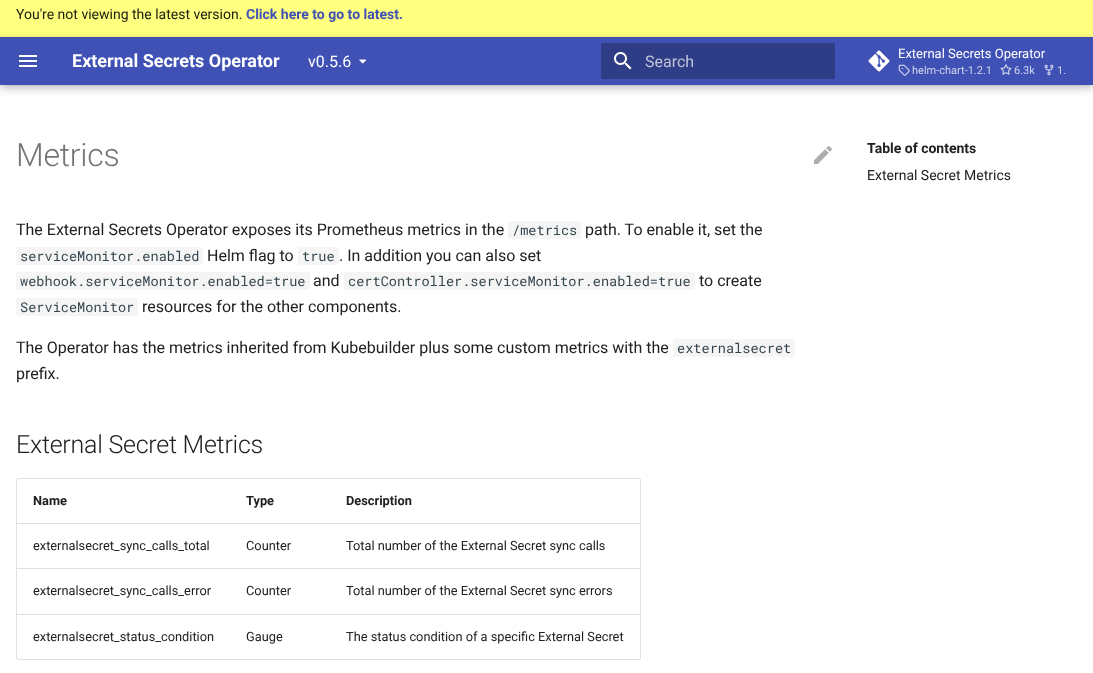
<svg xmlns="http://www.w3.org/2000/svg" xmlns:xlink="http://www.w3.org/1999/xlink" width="1093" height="673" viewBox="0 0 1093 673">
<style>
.cls-1{font:14px Roboto;fill:#212111}
.cls-2{font:bold 14px Roboto;fill:#4051b5}
.cls-3{font:bold 18px Roboto;fill:#ffffff}
.cls-4{font:16px Roboto;fill:#ffffff}
.cls-5{font:16px Roboto;fill:#c1c5db}
.cls-6{font:13px Roboto;fill:#ffffff}
.cls-7{font:11px Roboto;fill:#cfd4ed}
.cls-8{font:300 32px Roboto;letter-spacing:-0.25px;fill:#757575}
.cls-9{font:16px Roboto;fill:#212121}
.cls-10{font:13.6px Roboto Mono;fill:#36464e}
.cls-11{font:300 25px Roboto;letter-spacing:-0.25px;fill:#212121}
.cls-12{font:bold 12.8px Roboto;fill:#212121}
.cls-13{font:12.8px Roboto;fill:#212121}
.cls-14{font:bold 14px Roboto;fill:#212121}
.cls-15{font:14px Roboto;fill:#212121}
</style>
<rect width="100%" height="100%" fill="#ffffff"/>
<rect fill="#ffff80" x="0" y="0" width="1093" height="37"/>
<rect fill="#000000" fill-opacity="0.2" filter="blur(4px)" x="0" y="41" width="1093" height="48"/>
<rect fill="#000000" fill-opacity="0.1" filter="blur(2px)" x="0" y="37" width="1093" height="48"/>
<rect fill="#4051b5" x="0" y="37" width="1093" height="48"/>
<image xlink:href="image0.png" x="19" y="55" width="18" height="12"/>
<image xlink:href="image1.png" x="359" y="59" width="7" height="5"/>
<rect fill="#2f3c86" x="601" y="43" width="234" height="36" rx="2"/>
<image xlink:href="image2.png" x="614" y="52" width="18" height="18"/>
<image xlink:href="image3.png" x="868" y="50" width="22" height="22"/>
<image xlink:href="image4.png" x="898" y="64" width="12" height="12"/>
<image xlink:href="image5.png" x="1000" y="64" width="12" height="11"/>
<image xlink:href="image6.png" x="1044" y="64" width="10" height="12"/>
<image xlink:href="image7.png" x="814" y="146" width="18" height="18"/>
<rect fill="#f5f5f5" x="508" y="221" width="73" height="18" rx="2"/>
<rect fill="#f5f5f5" x="16" y="247" width="187" height="18" rx="2"/>
<rect fill="#f5f5f5" x="298" y="247" width="41" height="18" rx="2"/>
<rect fill="#f5f5f5" x="16" y="272" width="294" height="18" rx="2"/>
<rect fill="#f5f5f5" x="344" y="272" width="351" height="18" rx="2"/>
<rect fill="#f5f5f5" x="16" y="298" width="122" height="18" rx="2"/>
<rect fill="#f5f5f5" x="673" y="339" width="122" height="18" rx="2"/>
<rect fill="none" stroke="#e0e0e0" x="16.5" y="478.5" width="624" height="181" rx="1.5"/>
<rect fill="#e0e0e0" x="17" y="523" width="623" height="1"/>
<rect fill="#e0e0e0" x="17" y="568" width="623" height="1"/>
<rect fill="#e0e0e0" x="17" y="614" width="623" height="1"/>
<text class="cls-1" x="16" y="19">You're not viewing the latest version.</text>
<text class="cls-2" x="246" y="19">Click here to go to latest.</text>
<text class="cls-3" x="72" y="67">External Secrets Operator</text>
<text class="cls-4" x="308" y="67">v0.5.6</text>
<text class="cls-5" x="645" y="67">Search</text>
<text class="cls-6" x="898" y="58">External Secrets Operator</text>
<text class="cls-7" x="912" y="74">helm-chart-1.2.1</text>
<text class="cls-7" x="1014" y="74">6.3k</text>
<text class="cls-7" x="1057" y="74">1.</text>
<text class="cls-8" x="16" y="166">Metrics</text>
<text class="cls-9" x="16" y="235">The External Secrets Operator exposes its Prometheus metrics in the</text>
<text class="cls-10" x="512" y="235">/metrics</text>
<text class="cls-9" x="585" y="235">path. To enable it, set the</text>
<text class="cls-10" x="20" y="261">serviceMonitor.enabled</text>
<text class="cls-9" x="207" y="261">Helm flag to</text>
<text class="cls-10" x="302" y="261">true</text>
<text class="cls-9" x="339" y="261">. In addition you can also set</text>
<text class="cls-10" x="20" y="286">webhook.serviceMonitor.enabled=true</text>
<text class="cls-9" x="313" y="286">and</text>
<text class="cls-10" x="348" y="286">certController.serviceMonitor.enabled=true</text>
<text class="cls-9" x="699" y="286">to create</text>
<text class="cls-10" x="20" y="312">ServiceMonitor</text>
<text class="cls-9" x="142" y="312">resources for the other components.</text>
<text class="cls-9" x="16" y="353">The Operator has the metrics inherited from Kubebuilder plus some custom metrics with the</text>
<text class="cls-10" x="677" y="353">externalsecret</text>
<text class="cls-9" x="16" y="379">prefix.</text>
<text class="cls-11" x="16" y="453">External Secret Metrics</text>
<text class="cls-12" x="33" y="505">Name</text>
<text class="cls-12" x="246" y="505">Type</text>
<text class="cls-12" x="346" y="505">Description</text>
<text class="cls-13" x="33" y="550">externalsecret_sync_calls_total</text>
<text class="cls-13" x="246" y="550">Counter</text>
<text class="cls-13" x="346" y="550">Total number of the External Secret sync calls</text>
<text class="cls-13" x="33" y="595">externalsecret_sync_calls_error</text>
<text class="cls-13" x="246" y="595">Counter</text>
<text class="cls-13" x="346" y="595">Total number of the External Secret sync errors</text>
<text class="cls-13" x="33" y="641">externalsecret_status_condition</text>
<text class="cls-13" x="246" y="641">Gauge</text>
<text class="cls-13" x="346" y="641">The status condition of a specific External Secret</text>
<text class="cls-14" x="867" y="153">Table of contents</text>
<text class="cls-15" x="867" y="180">External Secret Metrics</text>
</svg>
